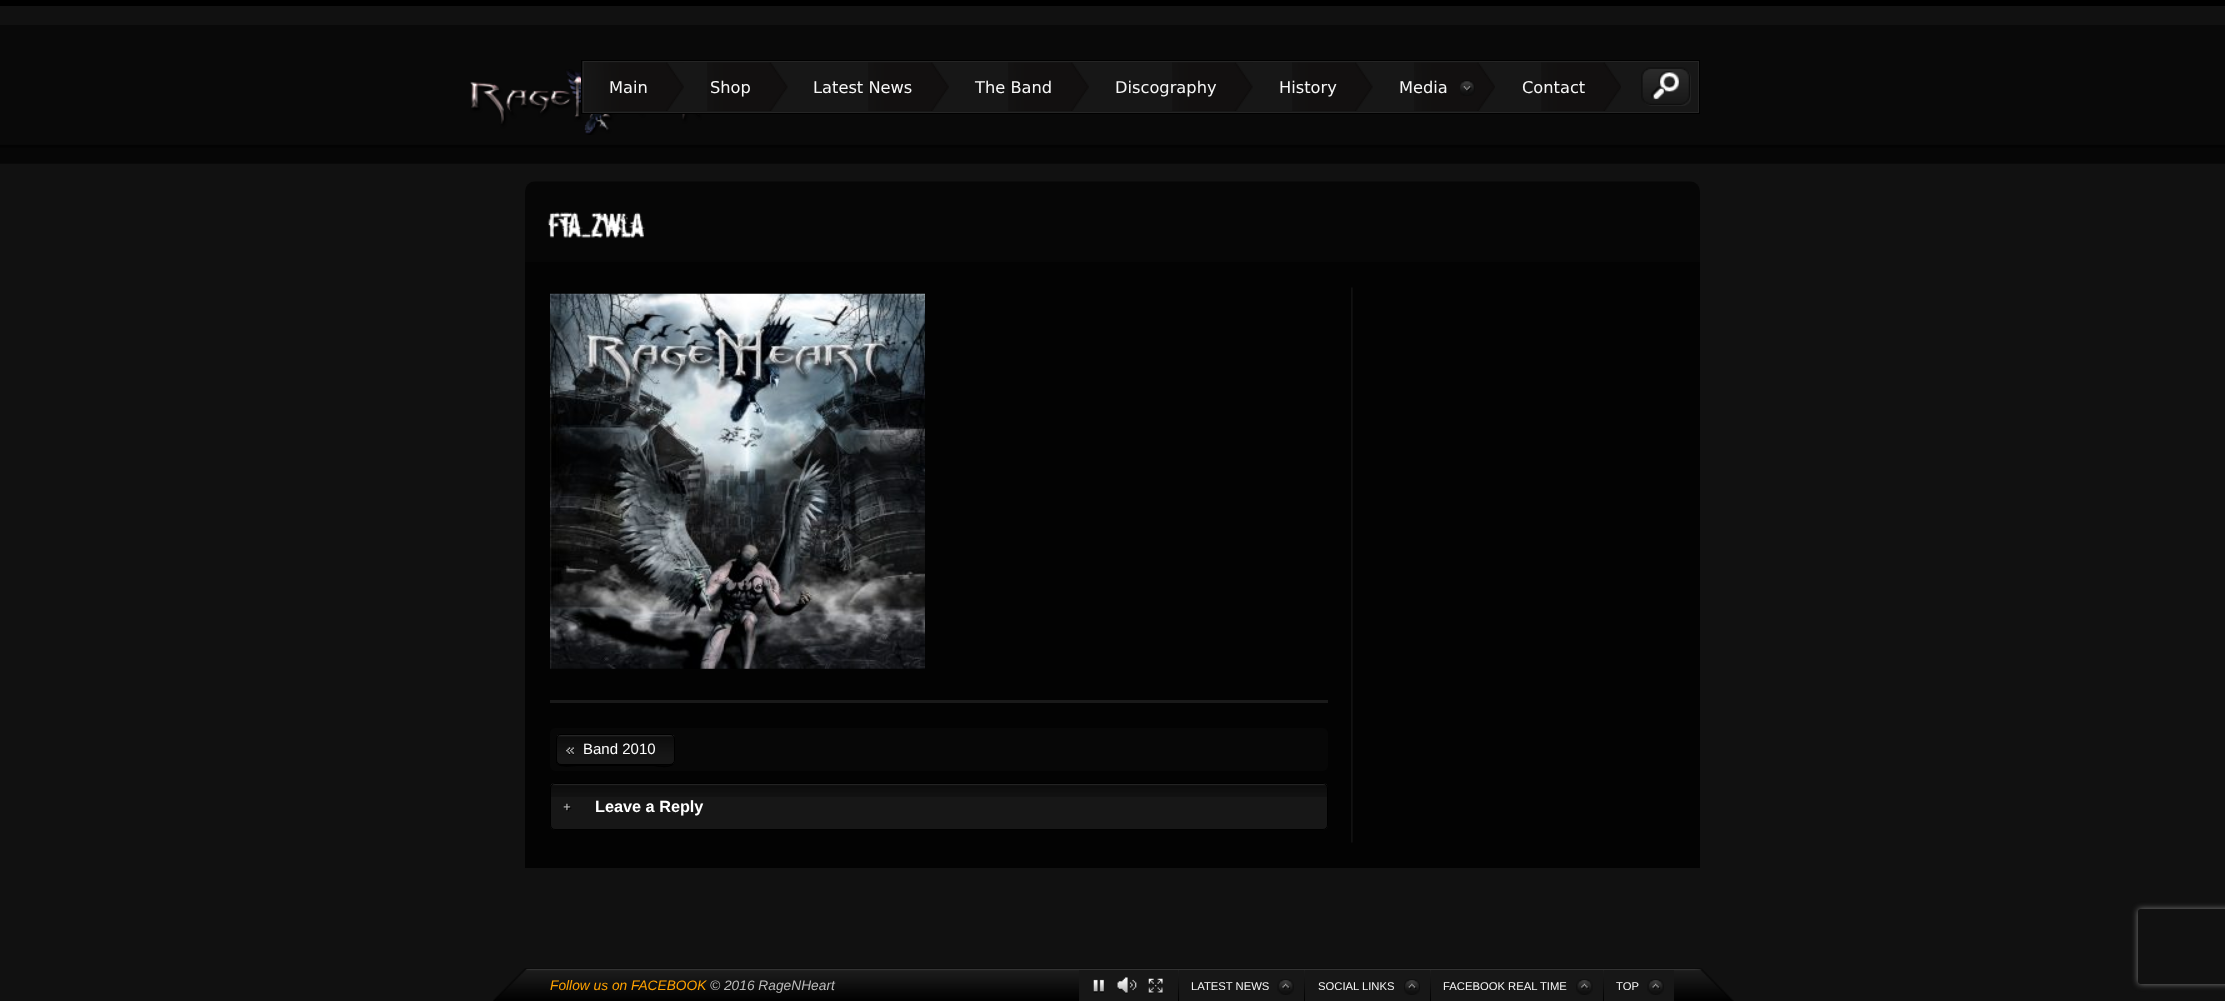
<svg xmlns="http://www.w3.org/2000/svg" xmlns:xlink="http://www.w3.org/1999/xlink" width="2225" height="1001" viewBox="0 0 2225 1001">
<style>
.cls-1{font:16.25px DejaVu Sans;fill:#f7f7f7}
.cls-2{font:15px Liberation Sans;fill:#ffffff}
.cls-3{font:bold 16.25px Liberation Sans;fill:#ffffff}
.cls-4{font:italic 13.75px Liberation Sans;fill:#ffa200}
.cls-5{font:italic 13.75px Liberation Sans;fill:#bbbbbb}
.cls-6{font:11.25px Liberation Sans;fill:#f7f7f7}
</style>
<defs>
<clipPath id="clip1"><path d="M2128 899H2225V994H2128ZM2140.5 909H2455.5C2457 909 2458 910 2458 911.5V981.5C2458 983 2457 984 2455.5 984H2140.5C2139 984 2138 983 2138 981.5V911.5C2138 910 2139 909 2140.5 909Z" clip-rule="evenodd"/></clipPath>
</defs>
<rect width="100%" height="100%" fill="#111111"/>
<image xlink:href="image0.png" x="0" y="25" width="2225" height="139"/>
<rect fill="#000000" x="0" y="0" width="2225" height="6"/>
<image xlink:href="image1.png" x="470" y="69" width="232" height="66"/>
<rect fill="#171717" x="582" y="61" width="1116" height="52"/>
<rect fill="none" stroke="#000000" x="581.5" y="60.5" width="1118" height="53"/>
<rect fill="none" stroke="#252525" x="583.5" y="61.5" width="1115" height="51"/>
<image xlink:href="image2.png" x="583" y="62" width="101" height="49"/>
<image xlink:href="image3.png" x="707" y="62" width="81" height="49"/>
<image xlink:href="image4.png" x="868" y="62" width="81" height="49"/>
<image xlink:href="image4.png" x="1008" y="62" width="81" height="49"/>
<image xlink:href="image5.png" x="1172" y="62" width="81" height="49"/>
<image xlink:href="image6.png" x="1292" y="62" width="81" height="49"/>
<image xlink:href="image7.png" x="1414" y="62" width="81" height="49"/>
<image xlink:href="image8.png" x="1460" y="80" width="15" height="16"/>
<image xlink:href="image9.png" x="1541" y="62" width="80" height="49"/>
<image xlink:href="image10.png" x="1641" y="67" width="50" height="39"/>
<image xlink:href="image11.png" x="525" y="181" width="1175" height="81"/>
<image xlink:href="image12.png" x="547" y="212" width="98" height="26"/>
<rect fill="#030303" x="525" y="262" width="1175" height="606"/>
<image xlink:href="image13.png" x="1351" y="287" width="2" height="556"/>
<image xlink:href="image14.png" x="550" y="293" width="375" height="376"/>
<rect fill="#1a1a1a" x="550" y="700" width="778" height="3"/>
<rect fill="#070707" x="550" y="728" width="778" height="43" rx="5"/>
<path fill="#000000" d="M556 738V762C558 769 572 766 579 766H652C656 766 675 771 675 760C675 768 661 765 652 765H561C556 765 556 760 556 756Z"/>
<image xlink:href="image15.png" x="556" y="735" width="119" height="29"/>
<rect fill="none" stroke="#000000" x="556.5" y="734.5" width="118" height="30" rx="4.5"/>
<image xlink:href="image16.png" x="566" y="747" width="8" height="8"/>
<rect fill="#171717" x="550" y="783" width="778" height="47" rx="5"/>
<image xlink:href="image17.png" x="550" y="783" width="777" height="14"/>
<rect fill="none" stroke="#000000" x="550.5" y="783.5" width="777" height="46" rx="4.5"/>
<image xlink:href="image18.png" x="563" y="803" width="9" height="9"/>
<image xlink:href="image19.png" x="493" y="968" width="1241" height="33"/>
<rect fill="#171717" x="1079" y="970" width="99" height="31"/>
<image xlink:href="image20.png" x="1093" y="979" width="11" height="14"/>
<image xlink:href="image21.png" x="1117" y="977" width="20" height="17"/>
<image xlink:href="image22.png" x="1148" y="978" width="15" height="16"/>
<rect fill="#171717" x="1179" y="970" width="125" height="31"/>
<image xlink:href="image23.png" x="1277" y="979" width="17" height="16"/>
<rect fill="#171717" x="1305" y="970" width="125" height="31"/>
<image xlink:href="image24.png" x="1404" y="979" width="16" height="16"/>
<rect fill="#171717" x="1431" y="970" width="172" height="31"/>
<image xlink:href="image25.png" x="1576" y="979" width="17" height="16"/>
<rect fill="#171717" x="1604" y="970" width="70" height="31"/>
<image xlink:href="image26.png" x="1647" y="979" width="17" height="16"/>
<g clip-path="url(#clip1)">
<rect fill="#808080" filter="blur(3px)" x="2138" y="909" width="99" height="75" rx="2.5"/>
</g>
<text class="cls-1" x="609" y="93">Main</text>
<text class="cls-1" x="710" y="93">Shop</text>
<text class="cls-1" x="813" y="93">Latest News</text>
<text class="cls-1" x="975" y="93">The Band</text>
<text class="cls-1" x="1115" y="93">Discography</text>
<text class="cls-1" x="1279" y="93">History</text>
<text class="cls-1" x="1399" y="93">Media</text>
<text class="cls-1" x="1522" y="93">Contact</text>
<text class="cls-2" x="583" y="754">Band 2010</text>
<text class="cls-3" x="595" y="812">Leave a Reply</text>
<text class="cls-4" x="550" y="990">Follow us on FACEBOOK</text>
<text class="cls-5" x="710" y="990">© 2016 RageNHeart</text>
<text class="cls-6" x="1191" y="990">LATEST NEWS</text>
<text class="cls-6" x="1318" y="990">SOCIAL LINKS</text>
<text class="cls-6" x="1443" y="990">FACEBOOK REAL TIME</text>
<text class="cls-6" x="1616" y="990">TOP</text>
</svg>
